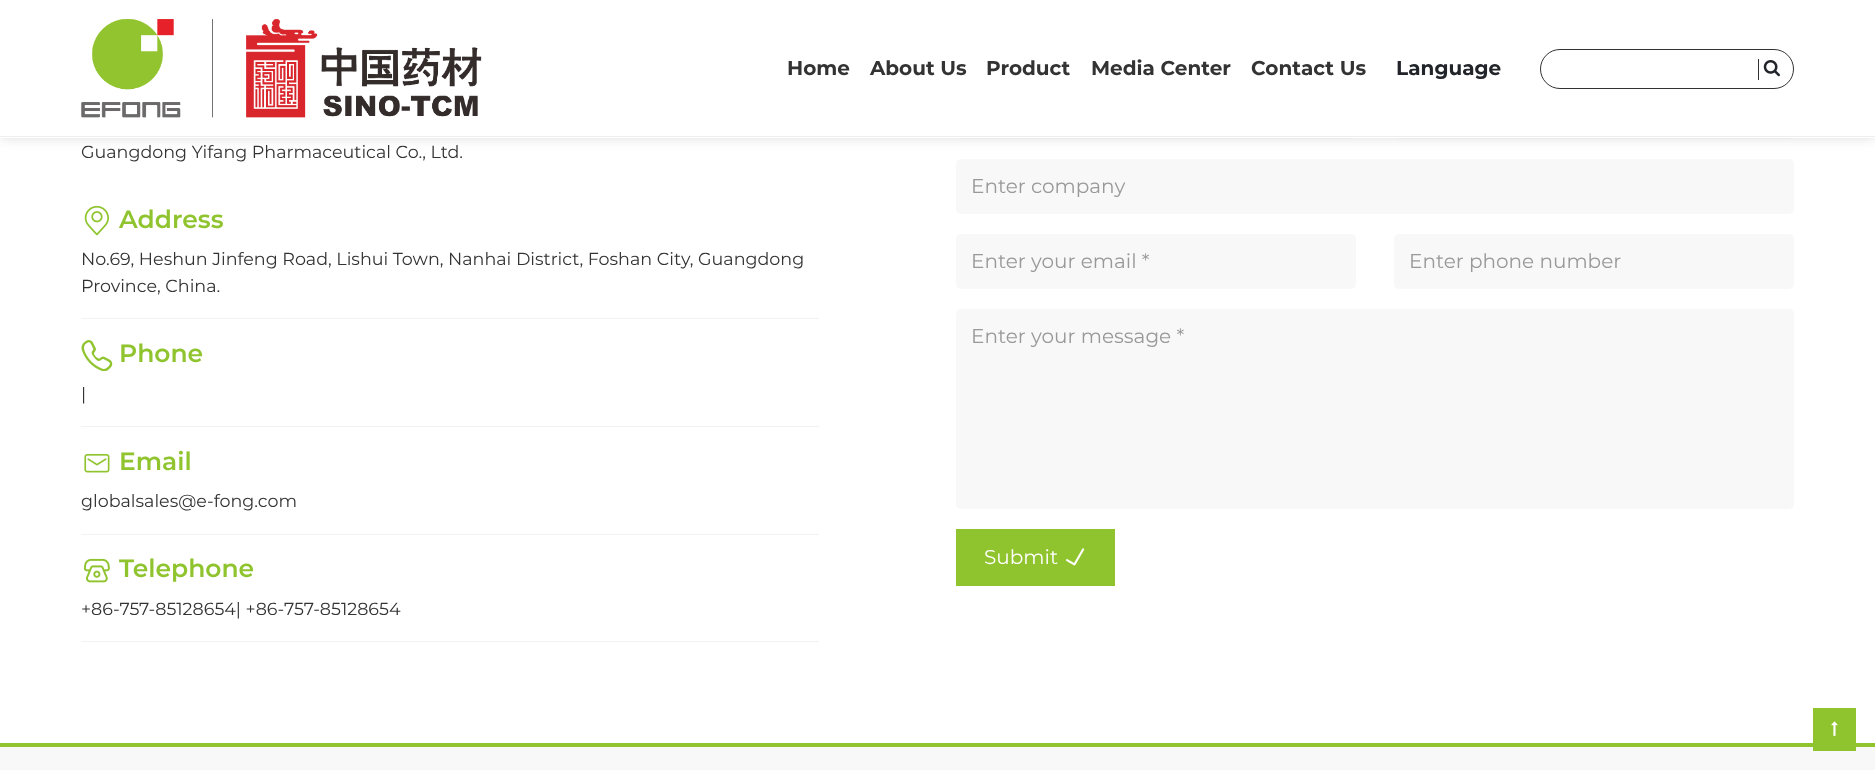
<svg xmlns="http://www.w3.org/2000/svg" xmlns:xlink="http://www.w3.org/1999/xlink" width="1875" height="770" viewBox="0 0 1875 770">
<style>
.cls-1{font:bold 20px Montserrat;fill:#333333}
.cls-2{font:bold 20px Montserrat;fill:#212529}
.cls-3{font:17.5px Montserrat;fill:#333333}
.cls-4{font:600 25px Montserrat;fill:#90c42f}
.cls-5{font:20px Montserrat;fill:#999999}
.cls-6{font:20px Montserrat;fill:#ffffff}
</style>
<rect width="100%" height="100%" fill="#ffffff"/>
<rect fill="#f8f8f8" x="956" y="84" width="400" height="55" rx="5"/>
<rect fill="#f8f8f8" x="1394" y="84" width="400" height="55" rx="5"/>
<rect fill="#dddddd" filter="blur(6px)" x="0" y="0" width="1875" height="138"/>
<rect fill="#ffffff" x="0" y="0" width="1875" height="138"/>
<rect fill="#eeeeee" x="0" y="136" width="1875" height="1"/>
<image xlink:href="image0.png" x="81" y="19" width="401" height="99"/>
<rect fill="none" stroke="#333333" x="1540.5" y="49.5" width="253" height="39" rx="19.5"/>
<rect fill="#333333" x="1758" y="59" width="1" height="21"/>
<image xlink:href="image1.png" x="1763" y="60" width="17" height="17"/>
<rect fill="#f2f2f2" x="81" y="318" width="738" height="1"/>
<image xlink:href="image2.png" x="84" y="205" width="25" height="31"/>
<rect fill="#f2f2f2" x="81" y="426" width="738" height="1"/>
<image xlink:href="image3.png" x="81" y="340" width="32" height="31"/>
<rect fill="#f2f2f2" x="81" y="534" width="738" height="1"/>
<image xlink:href="image4.png" x="84" y="454" width="26" height="19"/>
<rect fill="#f2f2f2" x="81" y="641" width="738" height="1"/>
<image xlink:href="image5.png" x="83" y="558" width="27" height="25"/>
<rect fill="#f8f8f8" x="956" y="159" width="838" height="55" rx="5"/>
<rect fill="#f8f8f8" x="956" y="234" width="400" height="55" rx="5"/>
<rect fill="#f8f8f8" x="1394" y="234" width="400" height="55" rx="5"/>
<rect fill="#f8f8f8" x="956" y="309" width="838" height="200" rx="5"/>
<rect fill="#90c42f" x="956" y="529" width="159" height="57"/>
<image xlink:href="image6.png" x="1066" y="548" width="19" height="18"/>
<rect fill="#f8f8f8" x="0" y="747" width="1875" height="23"/>
<rect fill="#90c42f" x="0" y="743" width="1875" height="4"/>
<rect fill="#90c42f" x="1813" y="708" width="43" height="43"/>
<image xlink:href="image7.png" x="1831" y="721" width="7" height="15"/>
<text class="cls-1" x="787" y="75">Home</text>
<text class="cls-1" x="870" y="75">About Us</text>
<text class="cls-1" x="986" y="75">Product</text>
<text class="cls-1" x="1091" y="75">Media Center</text>
<text class="cls-1" x="1251" y="75">Contact Us</text>
<text class="cls-2" x="1396" y="75">Language</text>
<text class="cls-3" x="81" y="158">Guangdong Yifang Pharmaceutical Co., Ltd.</text>
<text class="cls-4" x="119" y="228">Address</text>
<text class="cls-3"><tspan x="81" y="265">No.69, Heshun Jinfeng Road, Lishui Town, Nanhai District, Foshan City, Guangdong</tspan><tspan x="81" y="292">Province, China.</tspan></text>
<text class="cls-4" x="119" y="362">Phone</text>
<text class="cls-3" x="81" y="400">|</text>
<text class="cls-4" x="119" y="470">Email</text>
<text class="cls-3" x="81" y="507">globalsales@e-fong.com</text>
<text class="cls-4" x="119" y="577">Telephone</text>
<text class="cls-3" x="81" y="615">+86-757-85128654| +86-757-85128654</text>
<text class="cls-5" x="971" y="193">Enter company</text>
<text class="cls-5" x="971" y="268">Enter your email *</text>
<text class="cls-5" x="1409" y="268">Enter phone number</text>
<text class="cls-5" x="971" y="343">Enter your message *</text>
<text class="cls-6" x="984" y="564">Submit</text>
</svg>
